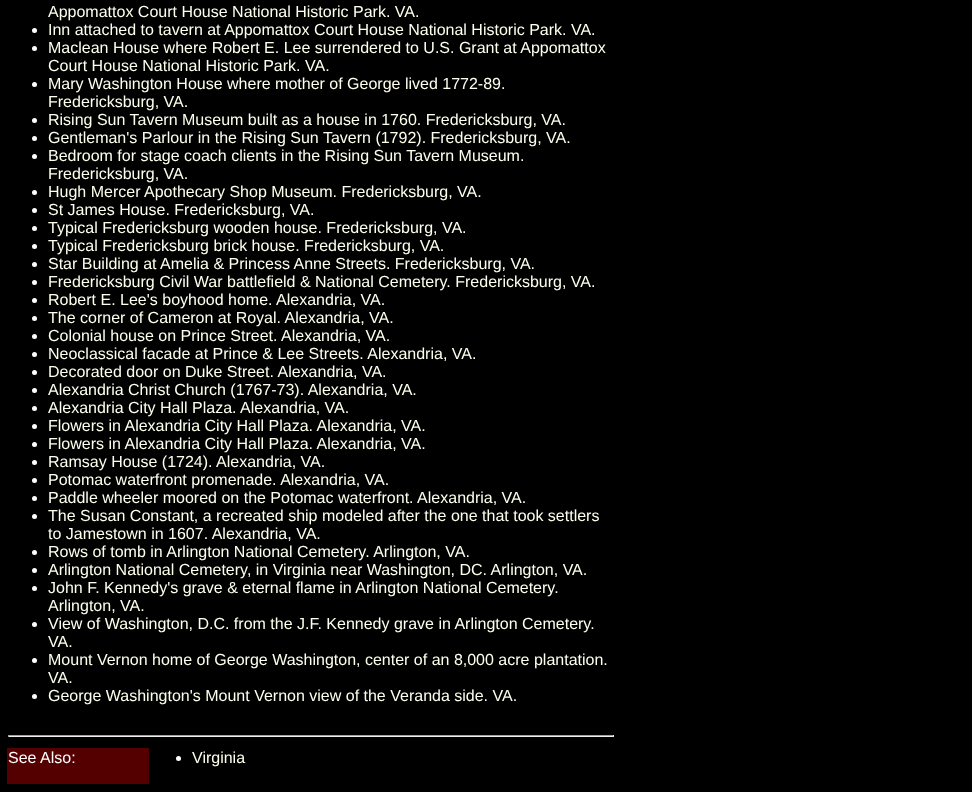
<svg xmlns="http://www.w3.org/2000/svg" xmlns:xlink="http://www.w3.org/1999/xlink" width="972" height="792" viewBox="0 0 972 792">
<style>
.cls-1{font:16px Liberation Sans;fill:#ffffee}
.cls-2{font:16px Liberation Sans;fill:#ffffff}
</style>
<rect width="100%" height="100%" fill="#000000"/>
<circle fill="#ffffff" cx="34.5" cy="30.5" r="2.5"/>
<circle fill="#ffffff" cx="34.5" cy="48.5" r="2.5"/>
<circle fill="#ffffff" cx="34.5" cy="84.5" r="2.5"/>
<circle fill="#ffffff" cx="34.5" cy="120.5" r="2.5"/>
<circle fill="#ffffff" cx="34.5" cy="138.5" r="2.5"/>
<circle fill="#ffffff" cx="34.5" cy="156.5" r="2.5"/>
<circle fill="#ffffff" cx="34.5" cy="192.5" r="2.5"/>
<circle fill="#ffffff" cx="34.5" cy="210.5" r="2.5"/>
<circle fill="#ffffff" cx="34.5" cy="228.5" r="2.5"/>
<circle fill="#ffffff" cx="34.5" cy="246.5" r="2.5"/>
<circle fill="#ffffff" cx="34.5" cy="264.5" r="2.5"/>
<circle fill="#ffffff" cx="34.5" cy="282.5" r="2.5"/>
<circle fill="#ffffff" cx="34.5" cy="300.5" r="2.5"/>
<circle fill="#ffffff" cx="34.5" cy="318.5" r="2.5"/>
<circle fill="#ffffff" cx="34.5" cy="336.5" r="2.5"/>
<circle fill="#ffffff" cx="34.5" cy="354.5" r="2.5"/>
<circle fill="#ffffff" cx="34.5" cy="372.5" r="2.5"/>
<circle fill="#ffffff" cx="34.5" cy="390.5" r="2.5"/>
<circle fill="#ffffff" cx="34.5" cy="408.5" r="2.5"/>
<circle fill="#ffffff" cx="34.5" cy="426.5" r="2.5"/>
<circle fill="#ffffff" cx="34.5" cy="444.5" r="2.5"/>
<circle fill="#ffffff" cx="34.5" cy="462.5" r="2.5"/>
<circle fill="#ffffff" cx="34.5" cy="480.5" r="2.5"/>
<circle fill="#ffffff" cx="34.5" cy="498.5" r="2.5"/>
<circle fill="#ffffff" cx="34.5" cy="516.5" r="2.5"/>
<circle fill="#ffffff" cx="34.5" cy="552.5" r="2.5"/>
<circle fill="#ffffff" cx="34.5" cy="570.5" r="2.5"/>
<circle fill="#ffffff" cx="34.5" cy="588.5" r="2.5"/>
<circle fill="#ffffff" cx="34.5" cy="624.5" r="2.5"/>
<circle fill="#ffffff" cx="34.5" cy="660.5" r="2.5"/>
<circle fill="#ffffff" cx="34.5" cy="696.5" r="2.5"/>
<rect fill="#9f9f9f" x="8" y="735" width="606" height="1"/>
<rect fill="#eeeeee" x="613" y="735" width="1" height="2"/>
<rect fill="#eeeeee" x="8" y="736" width="606" height="1"/>
<rect fill="#9f9f9f" x="8" y="735" width="1" height="2"/>
<rect fill="#550000" x="7" y="748" width="142" height="36"/>
<circle fill="#ffffff" cx="178.5" cy="758.5" r="2.5"/>
<text class="cls-1"><tspan x="48" y="17">Appomattox Court House National Historic Park. VA.</tspan><tspan x="48" y="35">Inn attached to tavern at Appomattox Court House National Historic Park. VA.</tspan><tspan x="48" y="53">Maclean House where Robert E. Lee surrendered to U.S. Grant at Appomattox</tspan><tspan x="48" y="71">Court House National Historic Park. VA.</tspan><tspan x="48" y="89">Mary Washington House where mother of George lived 1772-89.</tspan><tspan x="48" y="107">Fredericksburg, VA.</tspan><tspan x="48" y="125">Rising Sun Tavern Museum built as a house in 1760. Fredericksburg, VA.</tspan><tspan x="48" y="143">Gentleman's Parlour in the Rising Sun Tavern (1792). Fredericksburg, VA.</tspan><tspan x="48" y="161">Bedroom for stage coach clients in the Rising Sun Tavern Museum.</tspan><tspan x="48" y="179">Fredericksburg, VA.</tspan><tspan x="48" y="197">Hugh Mercer Apothecary Shop Museum. Fredericksburg, VA.</tspan><tspan x="48" y="215">St James House. Fredericksburg, VA.</tspan><tspan x="48" y="233">Typical Fredericksburg wooden house. Fredericksburg, VA.</tspan><tspan x="48" y="251">Typical Fredericksburg brick house. Fredericksburg, VA.</tspan><tspan x="48" y="269">Star Building at Amelia &amp; Princess Anne Streets. Fredericksburg, VA.</tspan><tspan x="48" y="287">Fredericksburg Civil War battlefield &amp; National Cemetery. Fredericksburg, VA.</tspan><tspan x="48" y="305">Robert E. Lee's boyhood home. Alexandria, VA.</tspan><tspan x="48" y="323">The corner of Cameron at Royal. Alexandria, VA.</tspan><tspan x="48" y="341">Colonial house on Prince Street. Alexandria, VA.</tspan><tspan x="48" y="359">Neoclassical facade at Prince &amp; Lee Streets. Alexandria, VA.</tspan><tspan x="48" y="377">Decorated door on Duke Street. Alexandria, VA.</tspan><tspan x="48" y="395">Alexandria Christ Church (1767-73). Alexandria, VA.</tspan><tspan x="48" y="413">Alexandria City Hall Plaza. Alexandria, VA.</tspan><tspan x="48" y="431">Flowers in Alexandria City Hall Plaza. Alexandria, VA.</tspan><tspan x="48" y="449">Flowers in Alexandria City Hall Plaza. Alexandria, VA.</tspan><tspan x="48" y="467">Ramsay House (1724). Alexandria, VA.</tspan><tspan x="48" y="485">Potomac waterfront promenade. Alexandria, VA.</tspan><tspan x="48" y="503">Paddle wheeler moored on the Potomac waterfront. Alexandria, VA.</tspan><tspan x="48" y="521">The Susan Constant, a recreated ship modeled after the one that took settlers</tspan><tspan x="48" y="539">to Jamestown in 1607. Alexandria, VA.</tspan><tspan x="48" y="557">Rows of tomb in Arlington National Cemetery. Arlington, VA.</tspan><tspan x="48" y="575">Arlington National Cemetery, in Virginia near Washington, DC. Arlington, VA.</tspan><tspan x="48" y="593">John F. Kennedy's grave &amp; eternal flame in Arlington National Cemetery.</tspan><tspan x="48" y="611">Arlington, VA.</tspan><tspan x="48" y="629">View of Washington, D.C. from the J.F. Kennedy grave in Arlington Cemetery.</tspan><tspan x="48" y="647">VA.</tspan><tspan x="48" y="665">Mount Vernon home of George Washington, center of an 8,000 acre plantation.</tspan><tspan x="48" y="683">VA.</tspan><tspan x="48" y="701">George Washington's Mount Vernon view of the Veranda side. VA.</tspan></text>
<text class="cls-2" x="8" y="763">See Also:</text>
<text class="cls-1" x="192" y="763">Virginia</text>
</svg>
